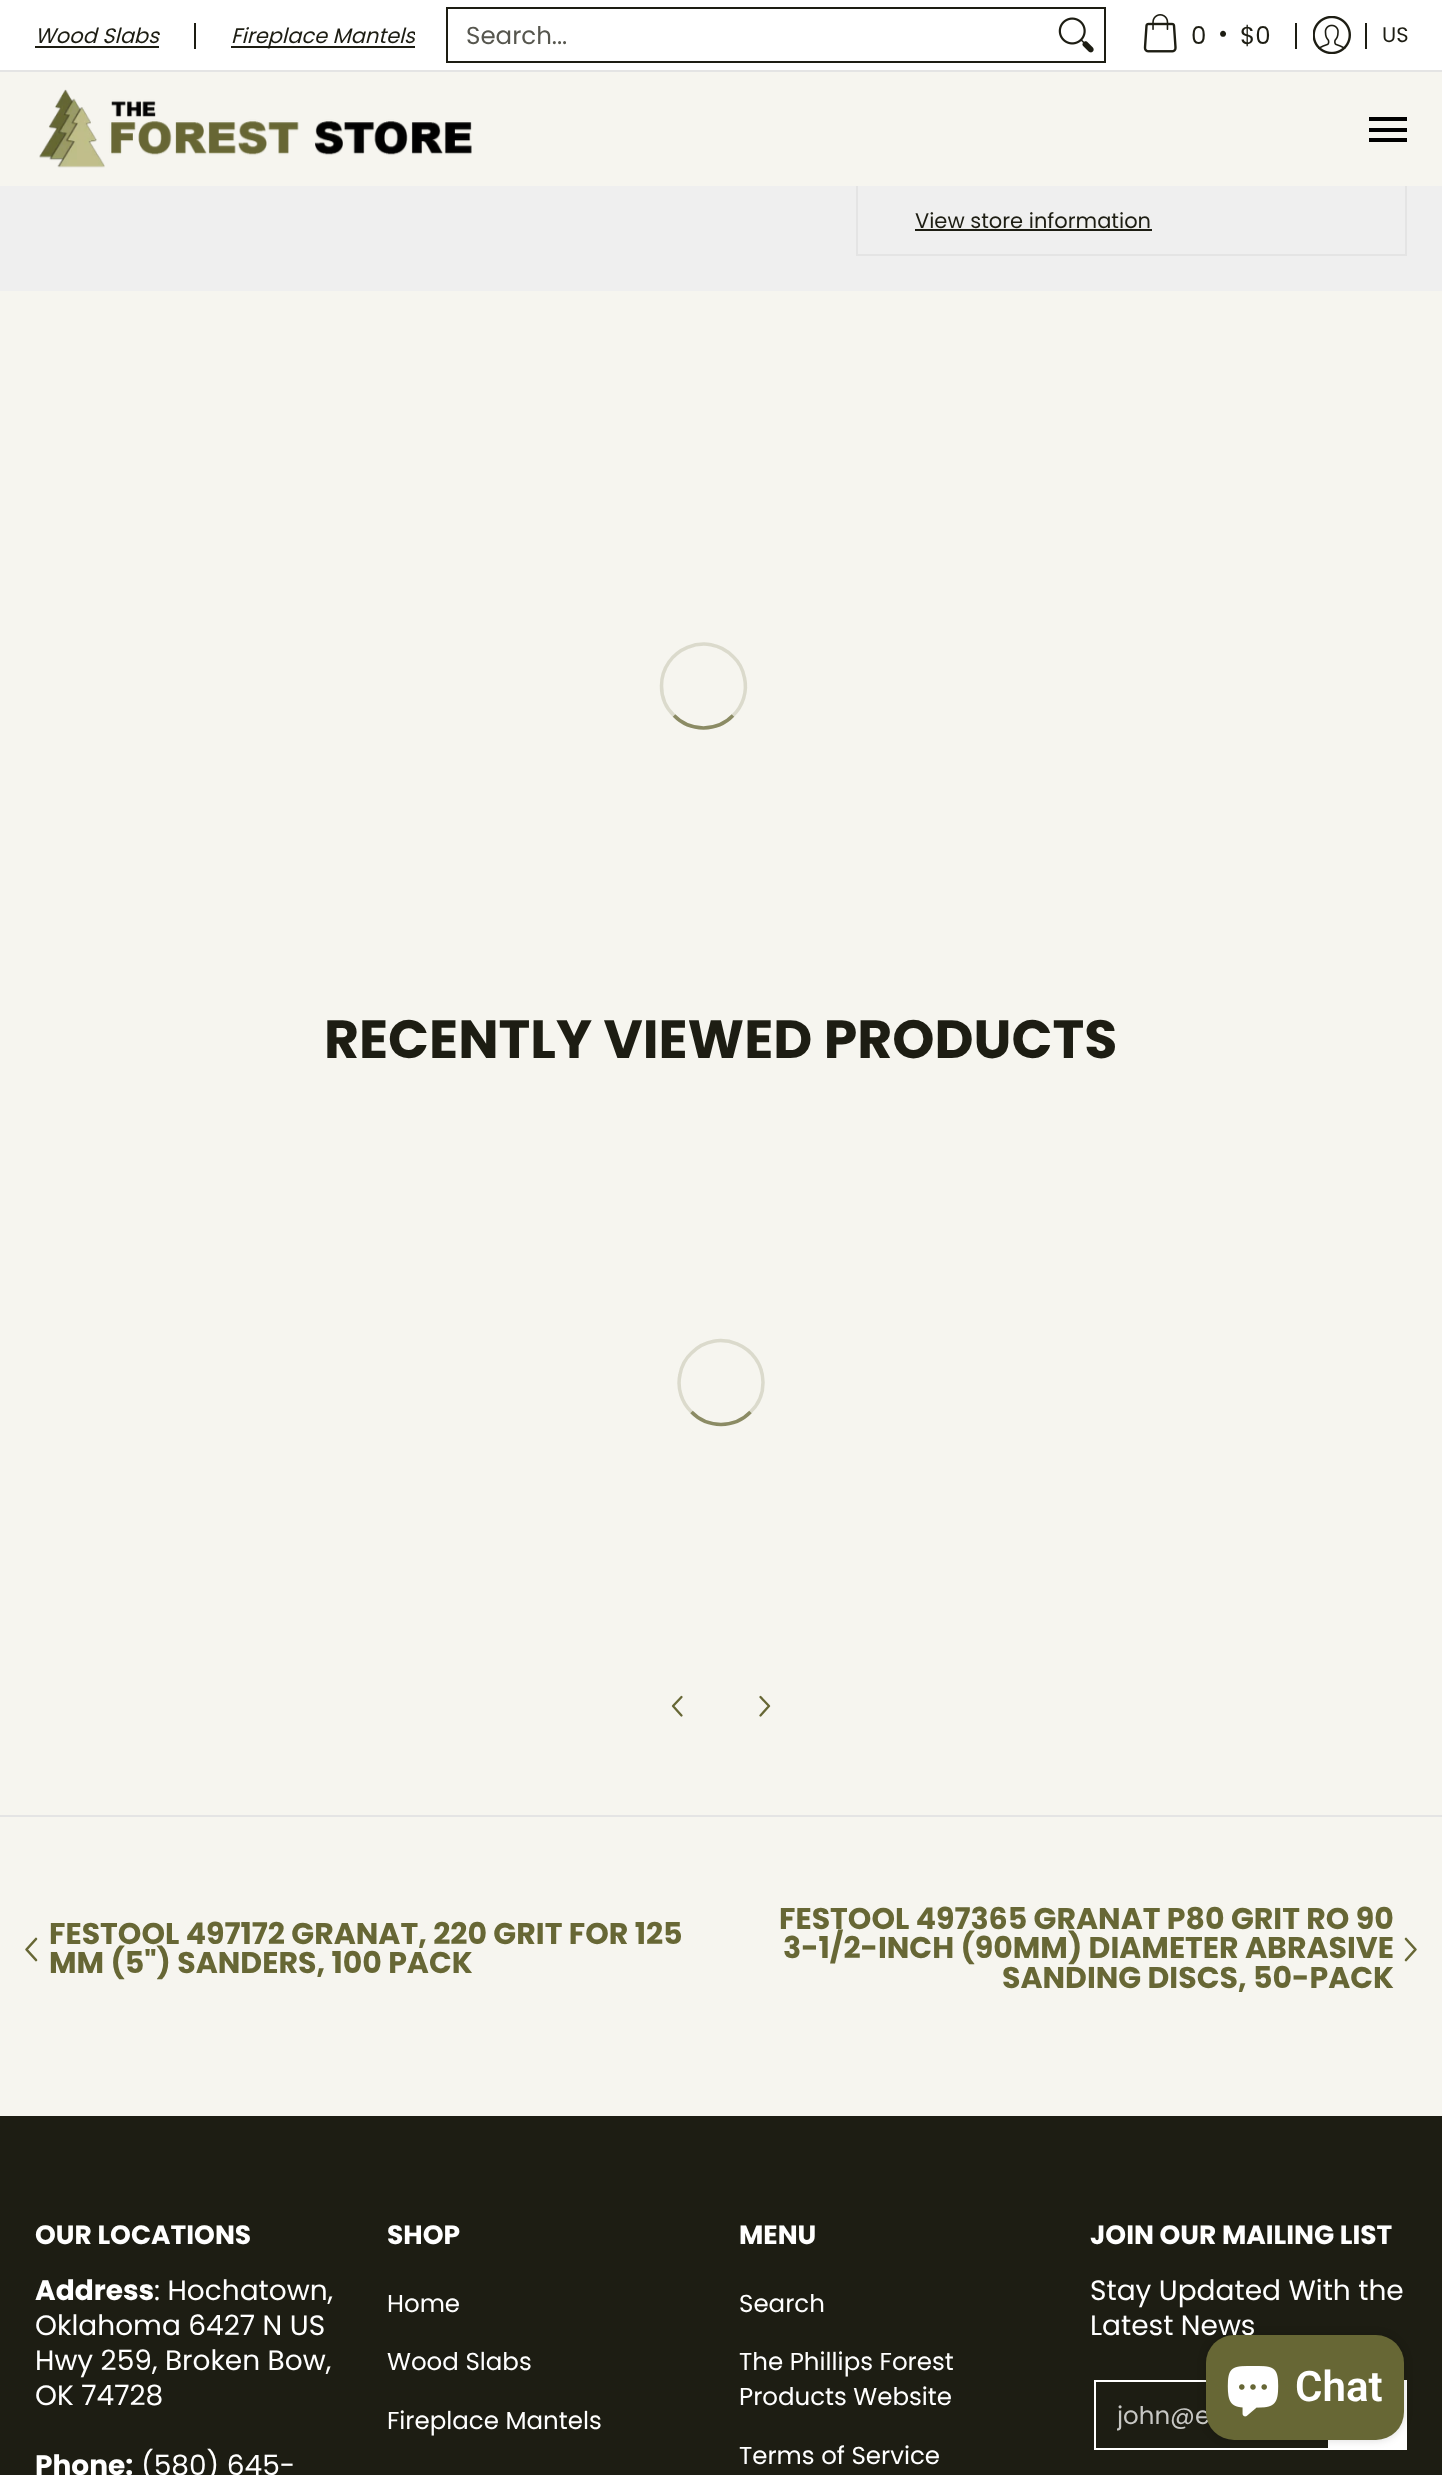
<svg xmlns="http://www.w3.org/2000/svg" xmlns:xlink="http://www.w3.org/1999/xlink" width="1442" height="2475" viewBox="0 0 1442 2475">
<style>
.cls-1{font:italic 21px Poppins;fill:#1d1d13}
.cls-2{font:24.5px Poppins;fill:#56564e}
.cls-3{font:24.5px Poppins;fill:#1d1d13}
.cls-4{font:21px Poppins;fill:#1d1d13}
.cls-5{font:bold 53.75px Poppins;fill:#1d1d13}
.cls-6{font:bold 30px Poppins;fill:#676735}
.cls-7{font:bold 26.5px Poppins;fill:#ffffff}
.cls-8{font:bold 28px Poppins;fill:#ffffff}
.cls-9{font:28px Poppins;fill:#ffffff}
.cls-10{font:24.5px Poppins;fill:#ffffff}
.cls-11{font:24.5px Poppins;fill:#c7c7c4}
.cls-12{font:600 42px Roboto;fill:#ffffff}
</style>
<defs>
<clipPath id="clip1"><rect x="196" y="23" width="219" height="26"/></clipPath>
<clipPath id="clip2"><rect x="1117" y="2398" width="192" height="36"/></clipPath>
</defs>
<rect width="100%" height="100%" fill="#f6f5ef"/>
<rect fill="#efefef" x="0" y="186" width="1442" height="105"/>
<rect fill="none" stroke="#e4e4e4" stroke-width="2" x="857" y="96" width="549" height="159"/>
<rect fill="#f6f5ef" x="856" y="95" width="551" height="91"/>
<rect fill="#ffffff" x="0" y="0" width="1442" height="70"/>
<rect fill="#e4e4e4" x="0" y="70" width="1442" height="2"/>
<rect fill="#1d1d13" x="35" y="46" width="124" height="2"/>
<rect fill="#1d1d13" x="194" y="23" width="2" height="26"/>
<rect fill="#1d1d13" x="231" y="46" width="184" height="2"/>
<rect fill="none" stroke="#1d1d13" stroke-width="2" x="447" y="8" width="658" height="54"/>
<image xlink:href="image0.png" x="1058" y="17" width="36" height="36"/>
<image xlink:href="image1.png" x="1143" y="14" width="34" height="39"/>
<rect fill="#1d1d13" x="1295" y="23" width="2" height="26"/>
<image xlink:href="image2.png" x="1313" y="16" width="38" height="38"/>
<rect fill="#1d1d13" x="1365" y="23" width="2" height="26"/>
<image xlink:href="image3.png" x="39" y="89" width="433" height="79"/>
<rect fill="#000000" x="1369" y="117" width="38" height="4"/>
<rect fill="#000000" x="1369" y="138" width="38" height="4"/>
<rect fill="#000000" x="1369" y="128" width="38" height="4"/>
<rect fill="#1d1d13" x="915" y="229" width="237" height="2"/>
<path fill="none" stroke="#8b8b64" stroke-width="3.5" d="M733 715.5C717 732 690 732 674 715.5"/>
<path fill="none" stroke="#8b8b64" stroke-opacity="0.25" stroke-width="3.5" d="M674 715.5C666 708 661.5 697 661.5 686C661.5 649 707 630 733 656.5C739 662 743 669.5 744.5 678C747.5 691.5 743 706 733 715.5"/>
<rect fill="#e4e4e4" x="0" y="1815" width="1442" height="2"/>
<path fill="none" stroke="#8b8b64" stroke-width="3.5" d="M750.5 1412C734.5 1428.5 707.5 1428.5 691.5 1412"/>
<path fill="none" stroke="#8b8b64" stroke-opacity="0.25" stroke-width="3.5" d="M691.5 1412C681.5 1402.5 677 1388 680 1374.5C681.5 1366 685.5 1358.5 691.5 1353C717.5 1326.5 763 1345.5 763 1382.5C763 1393.5 758.5 1404.5 750.5 1412"/>
<path fill="none" stroke="#676735" stroke-width="2.3" stroke-linecap="round" stroke-linejoin="round" d="M681.5 1697L673 1706L681.5 1715.5"/>
<path fill="none" stroke="#676735" stroke-width="2.3" stroke-linecap="round" stroke-linejoin="round" d="M760.5 1715.5L769 1706L760.5 1697"/>
<path fill="none" stroke="#676735" stroke-width="2.6" stroke-linecap="round" stroke-linejoin="round" d="M36 1939L26.5 1949.5L36 1960"/>
<path fill="none" stroke="#676735" stroke-width="2.6" stroke-linecap="round" stroke-linejoin="round" d="M1406 1960L1415.5 1949.5L1406 1939"/>
<rect fill="#1d1d13" x="0" y="2116" width="1442" height="359"/>
<rect fill="none" stroke="#ffffff" stroke-width="2" x="1095" y="2381" width="236" height="68"/>
<rect fill="#ffffff" x="1328" y="2380" width="79" height="70"/>
<rect fill="#000000" fill-opacity="0.15" filter="blur(4.5px)" x="1206" y="2335" width="198" height="105" rx="28"/>
<text class="cls-1" x="35" y="43">Wood Slabs</text>
<g clip-path="url(#clip1)">
<text class="cls-1" x="231" y="43">Fireplace Mantels</text>
</g>
<text class="cls-2" x="466" y="44">Search...</text>
<text class="cls-3" x="1191" y="44">0</text>
<text class="cls-3" x="1218" y="42">•</text>
<text class="cls-3" x="1240" y="44">$0</text>
<text class="cls-4" x="1382" y="42">US</text>
<text class="cls-4" x="915" y="228">View store information</text>
<text class="cls-5" x="324" y="1058">RECENTLY VIEWED PRODUCTS</text>
<text class="cls-6"><tspan x="49" y="1944">FESTOOL 497172 GRANAT, 220 GRIT FOR 125</tspan><tspan x="49" y="1973">MM (5") SANDERS, 100 PACK</tspan></text>
<text class="cls-6" x="779" y="1929">FESTOOL 497365 GRANAT P80 GRIT RO 90</text>
<text class="cls-6" x="783" y="1958">3-1/2-INCH (90MM) DIAMETER ABRASIVE</text>
<text class="cls-6" x="1002" y="1988">SANDING DISCS, 50-PACK</text>
<text class="cls-7" x="35" y="2244">OUR LOCATIONS</text>
<text class="cls-8" x="35" y="2300">Address</text>
<text class="cls-9" x="154" y="2300">: Hochatown,</text>
<text class="cls-9"><tspan x="35" y="2335">Oklahoma 6427 N US</tspan><tspan x="35" y="2370">Hwy 259, Broken Bow,</tspan><tspan x="35" y="2405">OK 74728</tspan></text>
<text class="cls-8" x="35" y="2475">Phone:</text>
<text class="cls-9" x="141" y="2475">(580) 645-</text>
<text class="cls-7" x="387" y="2244">SHOP</text>
<text class="cls-10" x="387" y="2312">Home</text>
<text class="cls-10" x="387" y="2370">Wood Slabs</text>
<text class="cls-10" x="387" y="2429">Fireplace Mantels</text>
<text class="cls-7" x="739" y="2244">MENU</text>
<text class="cls-10" x="739" y="2312">Search</text>
<text class="cls-10"><tspan x="739" y="2370">The Phillips Forest</tspan><tspan x="739" y="2405">Products Website</tspan></text>
<text class="cls-10" x="739" y="2464">Terms of Service</text>
<text class="cls-7" x="1090" y="2244">JOIN OUR MAILING LIST</text>
<text class="cls-9"><tspan x="1090" y="2300">Stay Updated With the</tspan><tspan x="1090" y="2335">Latest News</tspan></text>
<g clip-path="url(#clip2)">
<text class="cls-11" x="1117" y="2424">john@e</text>
</g>
<rect fill="#676735" x="1206" y="2335" width="198" height="105" rx="28"/>
<image xlink:href="image4.png" x="1227" y="2366" width="52" height="51"/>
<text class="cls-12" x="1295" y="2401">Chat</text>
</svg>
